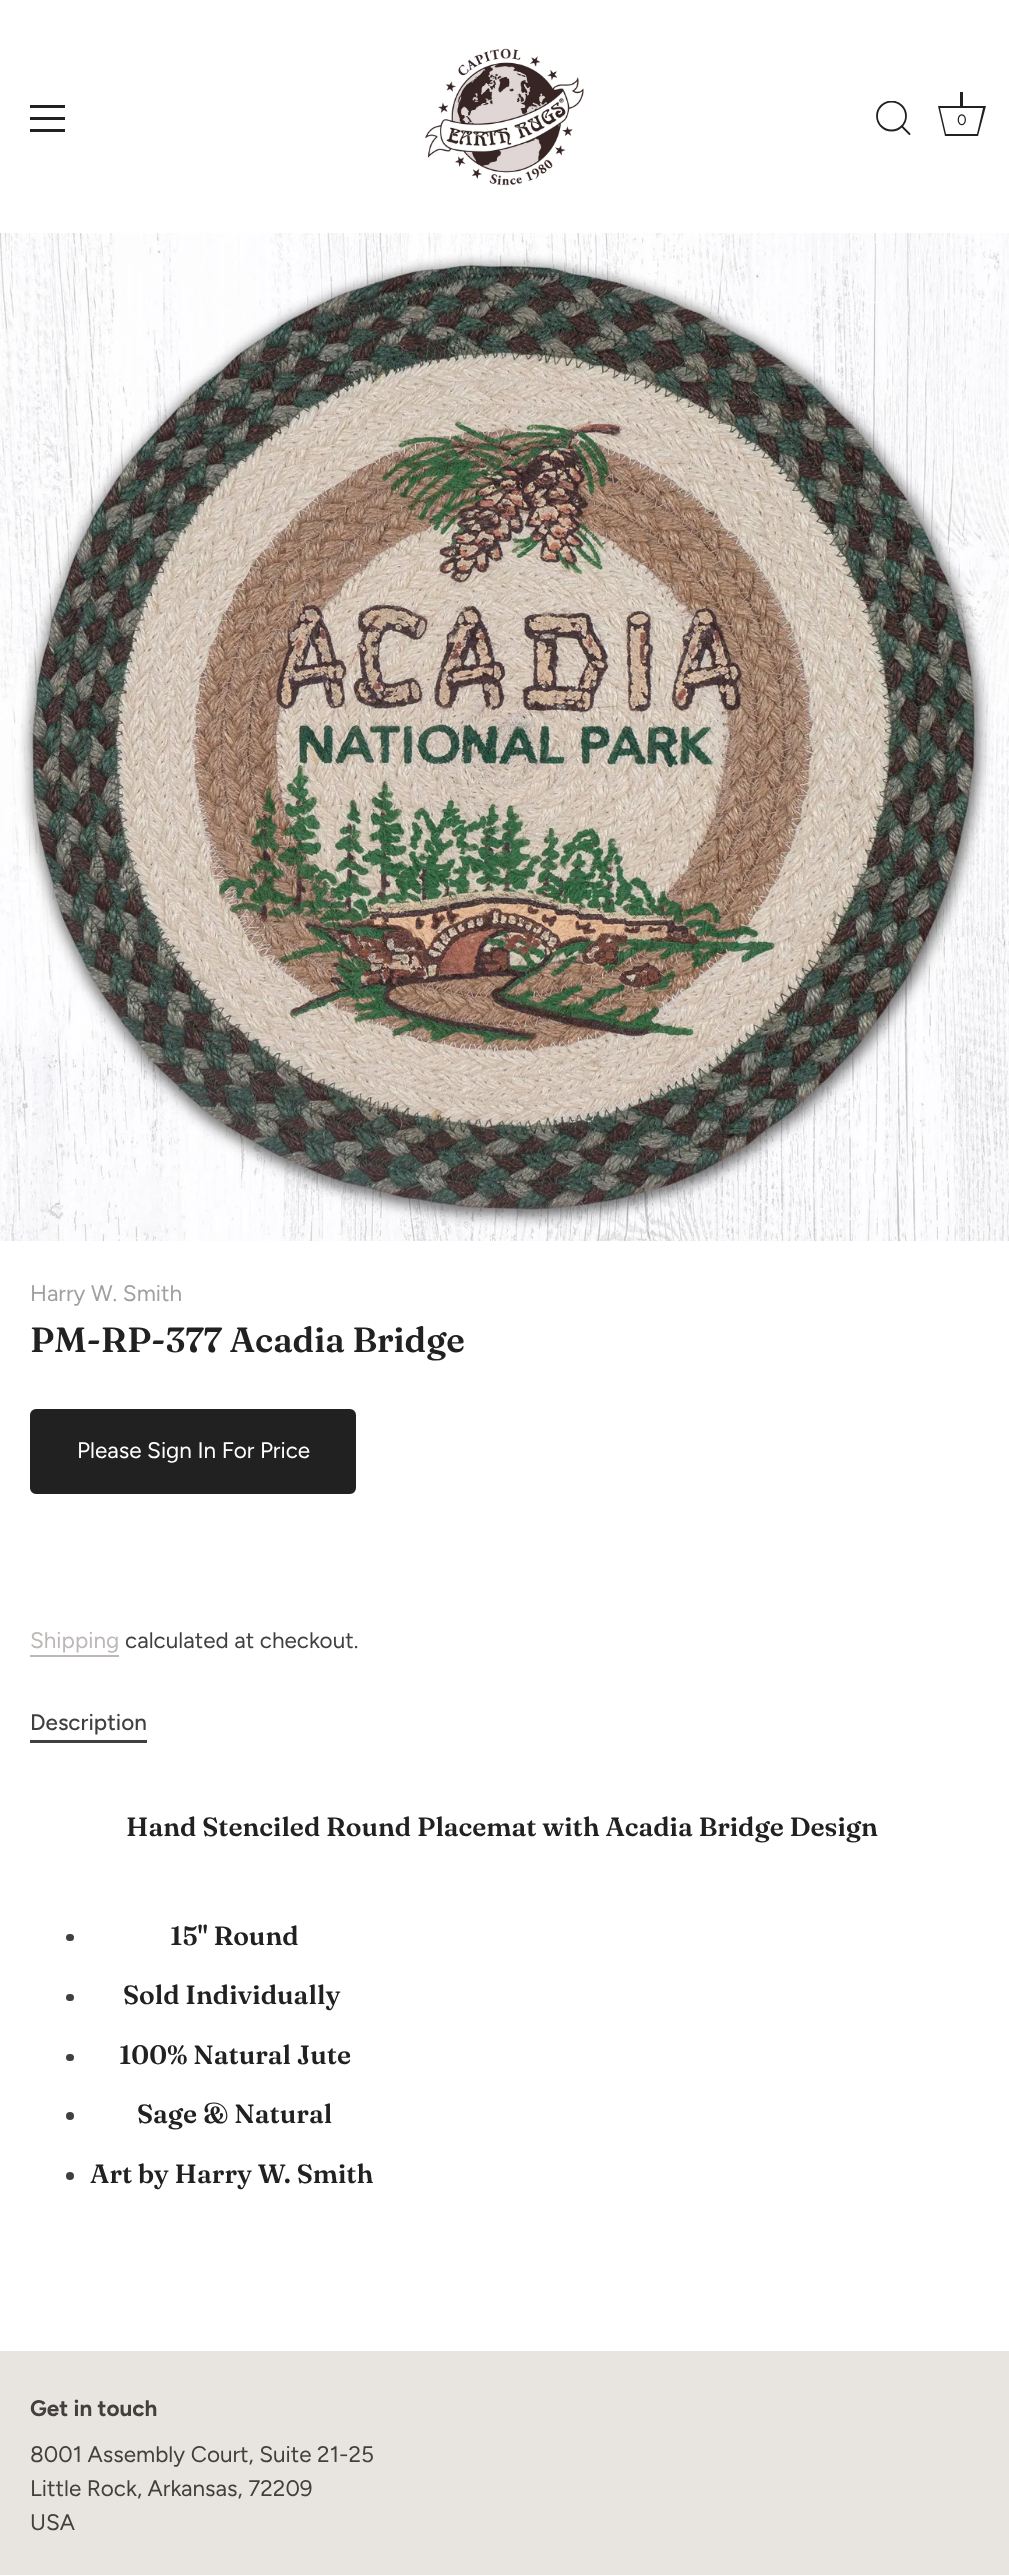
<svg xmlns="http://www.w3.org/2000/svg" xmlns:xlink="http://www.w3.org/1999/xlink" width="1009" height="2575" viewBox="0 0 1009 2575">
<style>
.cls-1{font:15px Figtree;fill:#212121}
.cls-2{font:22.5px Figtree;fill:#a19f9f}
.cls-3{font:600 35.1px Fraunces;fill:#212121}
.cls-4{font:22.5px Figtree;fill:#ffffff}
.cls-5{font:22.5px Figtree;fill:#bdb7b7}
.cls-6{font:22.5px Figtree;fill:#423f3f}
.cls-7{font:500 22.5px Figtree;fill:#423f3f}
.cls-8{font:600 26.45px 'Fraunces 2';fill:#212121}
.cls-9{font:bold 22.5px Figtree;fill:#423f3f}
</style>
<defs>
<clipPath id="clip1"><rect x="876" y="101" width="36" height="36"/></clipPath>
</defs>
<rect width="100%" height="100%" fill="#ffffff"/>
<rect fill="#212121" x="30" y="105" width="35" height="3"/>
<rect fill="#212121" x="30" y="117" width="35" height="3"/>
<rect fill="#212121" x="30" y="129" width="35" height="3"/>
<image xlink:href="image0.png" x="425" y="48" width="159" height="138"/>
<g clip-path="url(#clip1)">
<circle fill="none" stroke="#212121" stroke-width="1.8" cx="891.5" cy="116" r="14.5"/>
</g>
<path fill="none" stroke="#212121" stroke-width="1.8" stroke-linecap="round" stroke-linejoin="round" d="M909.5 134L902 126.5"/>
<rect fill="#212121" x="960" y="92" width="3" height="14"/>
<path fill="#212121" d="M983 108L977 134H946L940 108H983M986 106H938L945 136H978Z"/>
<image xlink:href="image1.png" x="0" y="233" width="1009" height="1008"/>
<rect fill="#212121" stroke="#212121" stroke-width="2" x="31" y="1410" width="324" height="83" rx="5"/>
<rect fill="#bdb7b7" x="30" y="1655" width="89" height="2"/>
<rect fill="#423f3f" x="30" y="1740" width="117" height="3"/>
<rect fill="#423f3f" x="66" y="1934" width="8" height="7" rx="3.5"/>
<rect fill="#423f3f" x="66" y="1994" width="8" height="7" rx="3.5"/>
<rect fill="#423f3f" x="66" y="2054" width="8" height="7" rx="3.5"/>
<circle fill="#423f3f" cx="70" cy="2116" r="4"/>
<circle fill="#423f3f" cx="70" cy="2176" r="4"/>
<rect fill="#e8e4df" x="0" y="2351" width="1009" height="224"/>
<text class="cls-1" x="957" y="125">0</text>
<text class="cls-2" x="30" y="1301">Harry W. Smith</text>
<text class="cls-3" x="30" y="1352">PM-RP-377 Acadia Bridge</text>
<text class="cls-4" x="77" y="1458">Please Sign In For Price</text>
<text class="cls-5" x="30" y="1648">Shipping</text>
<text class="cls-6" x="125" y="1648">calculated at checkout.</text>
<text class="cls-7" x="30" y="1730">Description</text>
<text class="cls-8" x="126" y="1836">Hand Stenciled Round Placemat with Acadia Bridge Design</text>
<text class="cls-8" x="170" y="1945">15" Round</text>
<text class="cls-8" x="123" y="2004">Sold Individually</text>
<text class="cls-8" x="119" y="2064">100% Natural Jute</text>
<text class="cls-8" x="137" y="2123">Sage &amp; Natural</text>
<text class="cls-8" x="90" y="2183">Art by Harry W. Smith</text>
<text class="cls-9" x="30" y="2416">Get in touch</text>
<text class="cls-6"><tspan x="30" y="2462">8001 Assembly Court, Suite 21-25</tspan><tspan x="30" y="2496">Little Rock, Arkansas, 72209</tspan><tspan x="30" y="2530">USA</tspan></text>
</svg>
